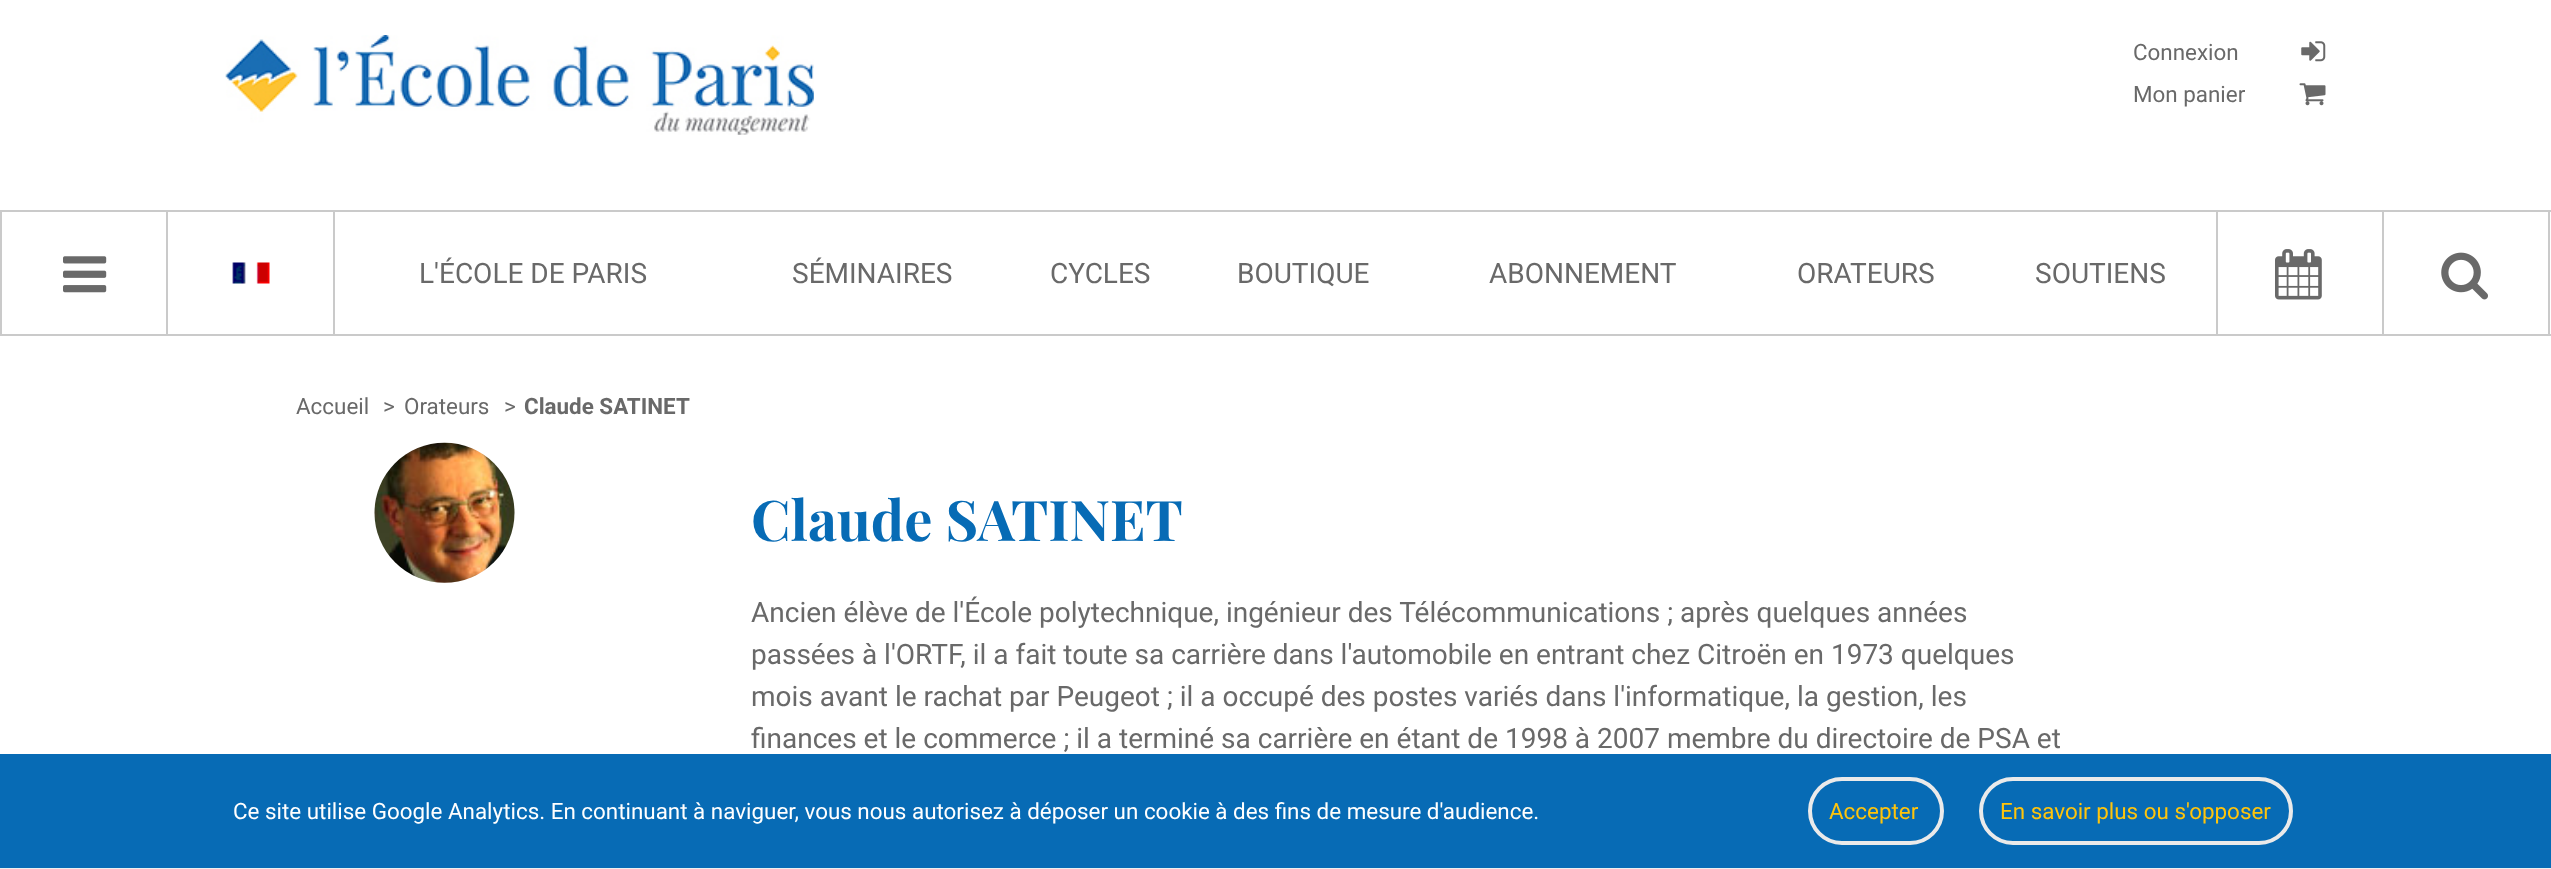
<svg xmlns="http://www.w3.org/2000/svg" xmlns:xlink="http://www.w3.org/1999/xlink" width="2551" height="869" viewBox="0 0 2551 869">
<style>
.cls-1{font:22.4px Roboto;fill:#696969}
.cls-2{font:28px Roboto;fill:#696969}
.cls-3{font:bold 22.4px Roboto;fill:#696969}
.cls-4{font:bold 56px Playfair Display;fill:#076bb5}
.cls-5{font:22.4px Roboto;fill:#ffffff}
.cls-6{font:22.4px Roboto;fill:#ffc40b}
</style>
<rect width="100%" height="100%" fill="#ffffff"/>
<image xlink:href="image0.png" x="225" y="35" width="589" height="100"/>
<image xlink:href="image1.png" x="2301" y="41" width="25" height="21"/>
<image xlink:href="image2.png" x="2299" y="83" width="27" height="23"/>
<rect fill="#cacaca" x="0" y="210" width="2551" height="2"/>
<rect fill="#cacaca" x="0" y="334" width="2551" height="2"/>
<rect fill="#cacaca" x="166" y="212" width="2" height="122"/>
<rect fill="#cacaca" x="0" y="212" width="2" height="122"/>
<image xlink:href="image3.png" x="63" y="256" width="44" height="37"/>
<rect fill="#cacaca" x="333" y="212" width="2" height="122"/>
<image xlink:href="image4.png" x="232" y="262" width="38" height="22"/>
<rect fill="#cacaca" x="2382" y="212" width="2" height="122"/>
<rect fill="#cacaca" x="2216" y="212" width="2" height="122"/>
<image xlink:href="image5.png" x="2275" y="249" width="47" height="51"/>
<rect fill="#cacaca" x="2548" y="212" width="2" height="122"/>
<image xlink:href="image6.png" x="2441" y="252" width="47" height="48"/>
<image xlink:href="image7.png" x="374" y="442" width="141" height="141"/>
<rect fill="#076bb5" x="0" y="754" width="2551" height="114"/>
<rect fill="#eeeeee" x="0" y="868" width="2551" height="1"/>
<rect fill="none" stroke="#eaeaea" stroke-width="4" x="1810" y="779" width="132" height="64" rx="32"/>
<rect fill="none" stroke="#eaeaea" stroke-width="4" x="1981" y="779" width="310" height="64" rx="32"/>
<text class="cls-1"><tspan x="2133" y="60">Connexion</tspan><tspan x="2133" y="102">Mon panier</tspan></text>
<text class="cls-2" x="419" y="283">L'ÉCOLE DE PARIS</text>
<text class="cls-2" x="792" y="283">SÉMINAIRES</text>
<text class="cls-2" x="1050" y="283">CYCLES</text>
<text class="cls-2" x="1237" y="283">BOUTIQUE</text>
<text class="cls-2" x="1489" y="283">ABONNEMENT</text>
<text class="cls-2" x="1797" y="283">ORATEURS</text>
<text class="cls-2" x="2035" y="283">SOUTIENS</text>
<text class="cls-1" x="296" y="414">Accueil</text>
<text class="cls-1" x="383" y="414">&gt;</text>
<text class="cls-1" x="404" y="414">Orateurs</text>
<text class="cls-1" x="504" y="414">&gt;</text>
<text class="cls-3" x="524" y="414">Claude SATINET</text>
<text class="cls-4" x="751" y="541">Claude SATINET</text>
<text class="cls-2"><tspan x="751" y="622">Ancien élève de l'École polytechnique, ingénieur des Télécommunications ; après quelques années</tspan><tspan x="751" y="664">passées à l'ORTF, il a fait toute sa carrière dans l'automobile en entrant chez Citroën en 1973 quelques</tspan><tspan x="751" y="706">mois avant le rachat par Peugeot ; il a occupé des postes variés dans l'informatique, la gestion, les</tspan><tspan x="751" y="748">finances et le commerce ; il a terminé sa carrière en étant de 1998 à 2007 membre du directoire de PSA et</tspan></text>
<text class="cls-5" x="233" y="819">Ce site utilise Google Analytics. En continuant à naviguer, vous nous autorisez à déposer un cookie à des fins de mesure d'audience.</text>
<text class="cls-6" x="1829" y="819">Accepter</text>
<text class="cls-6" x="2000" y="819">En savoir plus ou s'opposer</text>
</svg>
